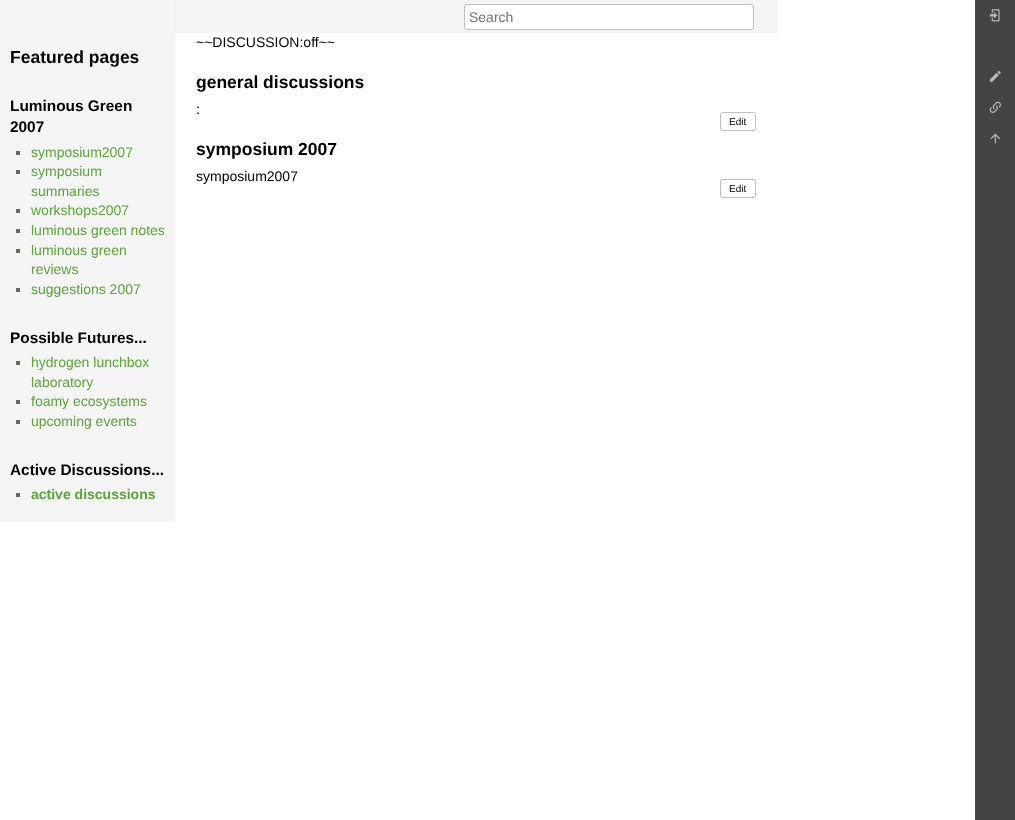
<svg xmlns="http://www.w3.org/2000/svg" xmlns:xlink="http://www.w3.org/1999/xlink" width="1015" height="820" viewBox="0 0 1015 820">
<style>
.cls-1{font:bold 17.5px Liberation Sans;fill:#000000}
.cls-2{font:bold 15.4px Liberation Sans;fill:#000000}
.cls-3{font:14px Liberation Sans;fill:#5ca43b}
.cls-4{font:bold 14px Liberation Sans;fill:#5ca43b}
.cls-5{font:14px Liberation Sans;fill:#757575}
.cls-6{font:14px Liberation Sans;fill:#000000}
.cls-7{font:10px Liberation Sans;fill:#000000}
</style>
<rect width="100%" height="100%" fill="#ffffff"/>
<rect fill="#f5f5f5" x="0" y="0" width="175" height="522"/>
<rect fill="#666666" x="16" y="151" width="4" height="4"/>
<rect fill="#666666" x="16" y="170" width="4" height="4"/>
<rect fill="#666666" x="16" y="209" width="4" height="4"/>
<rect fill="#666666" x="16" y="229" width="4" height="4"/>
<rect fill="#666666" x="16" y="249" width="4" height="4"/>
<rect fill="#666666" x="16" y="288" width="4" height="4"/>
<rect fill="#666666" x="16" y="361" width="4" height="4"/>
<rect fill="#666666" x="16" y="400" width="4" height="4"/>
<rect fill="#666666" x="16" y="420" width="4" height="4"/>
<rect fill="#666666" x="16" y="493" width="4" height="4"/>
<rect fill="#f4f4f4" x="175" y="0" width="602" height="33"/>
<rect fill="#ffffff" stroke="#c0c0c0" x="464.5" y="4.5" width="289" height="25" rx="2.5"/>
<rect fill="#444444" x="975" y="0" width="40" height="820"/>
<image xlink:href="image0.png" x="989" y="9" width="11" height="13"/>
<image xlink:href="image1.png" x="989" y="70" width="12" height="12"/>
<image xlink:href="image2.png" x="989" y="101" width="12" height="12"/>
<image xlink:href="image3.png" x="990" y="133" width="11" height="11"/>
<rect fill="none" stroke="#c0c0c0" x="720.5" y="112.5" width="35" height="18" rx="2.5"/>
<rect fill="none" stroke="#c0c0c0" x="720.5" y="179.5" width="35" height="18" rx="2.5"/>
<text class="cls-1" x="10" y="63">Featured pages</text>
<text class="cls-2"><tspan x="10" y="111">Luminous Green</tspan><tspan x="10" y="132">2007</tspan></text>
<text class="cls-3"><tspan x="31" y="157">symposium2007</tspan><tspan x="31" y="176">symposium</tspan><tspan x="31" y="196">summaries</tspan><tspan x="31" y="215">workshops2007</tspan><tspan x="31" y="235">luminous green notes</tspan><tspan x="31" y="255">luminous green</tspan><tspan x="31" y="274">reviews</tspan><tspan x="31" y="294">suggestions 2007</tspan></text>
<text class="cls-2" x="10" y="343">Possible Futures...</text>
<text class="cls-3"><tspan x="31" y="367">hydrogen lunchbox</tspan><tspan x="31" y="387">laboratory</tspan><tspan x="31" y="406">foamy ecosystems</tspan><tspan x="31" y="426">upcoming events</tspan></text>
<text class="cls-2" x="10" y="475">Active Discussions...</text>
<text class="cls-4" x="31" y="499">active discussions</text>
<text class="cls-5" x="469" y="22">Search</text>
<text class="cls-6" x="196" y="47">~~DISCUSSION:off~~</text>
<text class="cls-1" x="196" y="88">general discussions</text>
<text class="cls-6" x="196" y="114">:</text>
<text class="cls-7" x="729" y="125">Edit</text>
<text class="cls-1" x="196" y="155">symposium 2007</text>
<text class="cls-6" x="196" y="181">symposium2007</text>
<text class="cls-7" x="729" y="192">Edit</text>
</svg>
